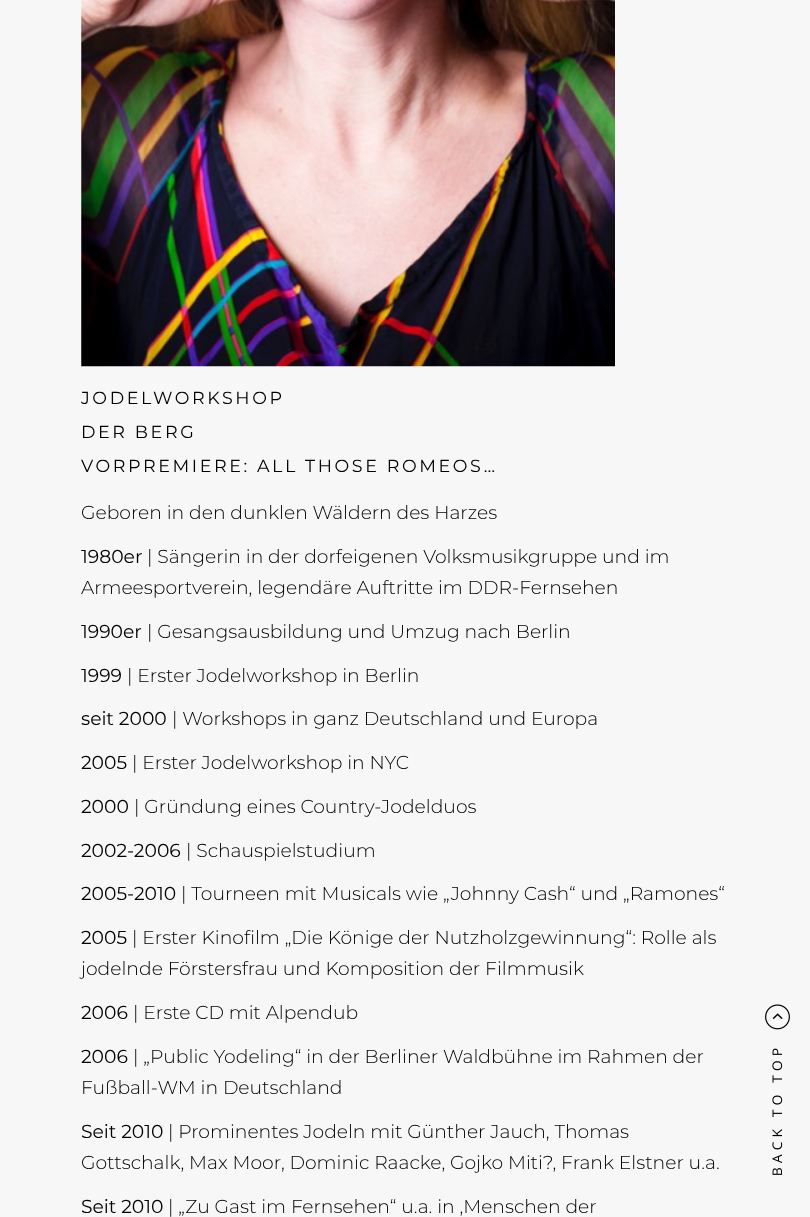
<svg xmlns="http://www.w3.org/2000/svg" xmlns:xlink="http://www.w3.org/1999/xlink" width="810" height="1217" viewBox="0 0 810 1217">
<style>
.cls-1{font:17.5px Montserrat;letter-spacing:2.6px;fill:#000000}
.cls-2{font:300 18.75px Montserrat;fill:#000000}
.cls-3{font:18.75px Montserrat;fill:#000000}
</style>
<rect width="100%" height="100%" fill="#f7f7f7"/>
<image xlink:href="image0.png" x="81" y="0" width="534" height="367"/>
<image xlink:href="image1.png" x="765" y="1004" width="25" height="171"/>
<text class="cls-1"><tspan x="81" y="404">JODELWORKSHOP</tspan><tspan x="81" y="438">DER BERG</tspan><tspan x="81" y="472">VORPREMIERE: ALL THOSE ROMEOS…</tspan></text>
<text class="cls-2" x="81" y="519">Geboren in den dunklen Wäldern des Harzes</text>
<text class="cls-3" x="81" y="563">1980er</text>
<text class="cls-2" x="147" y="563">| Sängerin in der dorfeigenen Volksmusikgruppe und im</text>
<text class="cls-2" x="81" y="594">Armeesportverein, legendäre Auftritte im DDR-Fernsehen</text>
<text class="cls-3" x="81" y="638">1990er</text>
<text class="cls-2" x="147" y="638">| Gesangsausbildung und Umzug nach Berlin</text>
<text class="cls-3" x="81" y="682">1999</text>
<text class="cls-2" x="127" y="682">| Erster Jodelworkshop in Berlin</text>
<text class="cls-3" x="81" y="725">seit 2000</text>
<text class="cls-2" x="172" y="725">| Workshops in ganz Deutschland und Europa</text>
<text class="cls-3" x="81" y="769">2005</text>
<text class="cls-2" x="132" y="769">| Erster Jodelworkshop in NYC</text>
<text class="cls-3" x="81" y="813">2000</text>
<text class="cls-2" x="134" y="813">| Gründung eines Country-Jodelduos</text>
<text class="cls-3" x="81" y="857">2002-2006</text>
<text class="cls-2" x="186" y="857">| Schauspielstudium</text>
<text class="cls-3" x="81" y="900">2005-2010</text>
<text class="cls-2" x="181" y="900">| Tourneen mit Musicals wie „Johnny Cash“ und „Ramones“</text>
<text class="cls-3" x="81" y="944">2005</text>
<text class="cls-2" x="132" y="944">| Erster Kinofilm „Die Könige der Nutzholzgewinnung“: Rolle als</text>
<text class="cls-2" x="81" y="975">jodelnde Förstersfrau und Komposition der Filmmusik</text>
<text class="cls-3" x="81" y="1019">2006</text>
<text class="cls-2" x="133" y="1019">| Erste CD mit Alpendub</text>
<text class="cls-3" x="81" y="1063">2006</text>
<text class="cls-2" x="133" y="1063">| „Public Yodeling“ in der Berliner Waldbühne im Rahmen der</text>
<text class="cls-2" x="81" y="1094">Fußball-WM in Deutschland</text>
<text class="cls-3" x="81" y="1138">Seit 2010</text>
<text class="cls-2" x="168" y="1138">| Prominentes Jodeln mit Günther Jauch, Thomas</text>
<text class="cls-2" x="81" y="1169">Gottschalk, Max Moor, Dominic Raacke, Gojko Miti?, Frank Elstner u.a.</text>
<text class="cls-3" x="81" y="1213">Seit 2010</text>
<text class="cls-2" x="168" y="1213">| „Zu Gast im Fernsehen“ u.a. in ‚Menschen der</text>
</svg>
